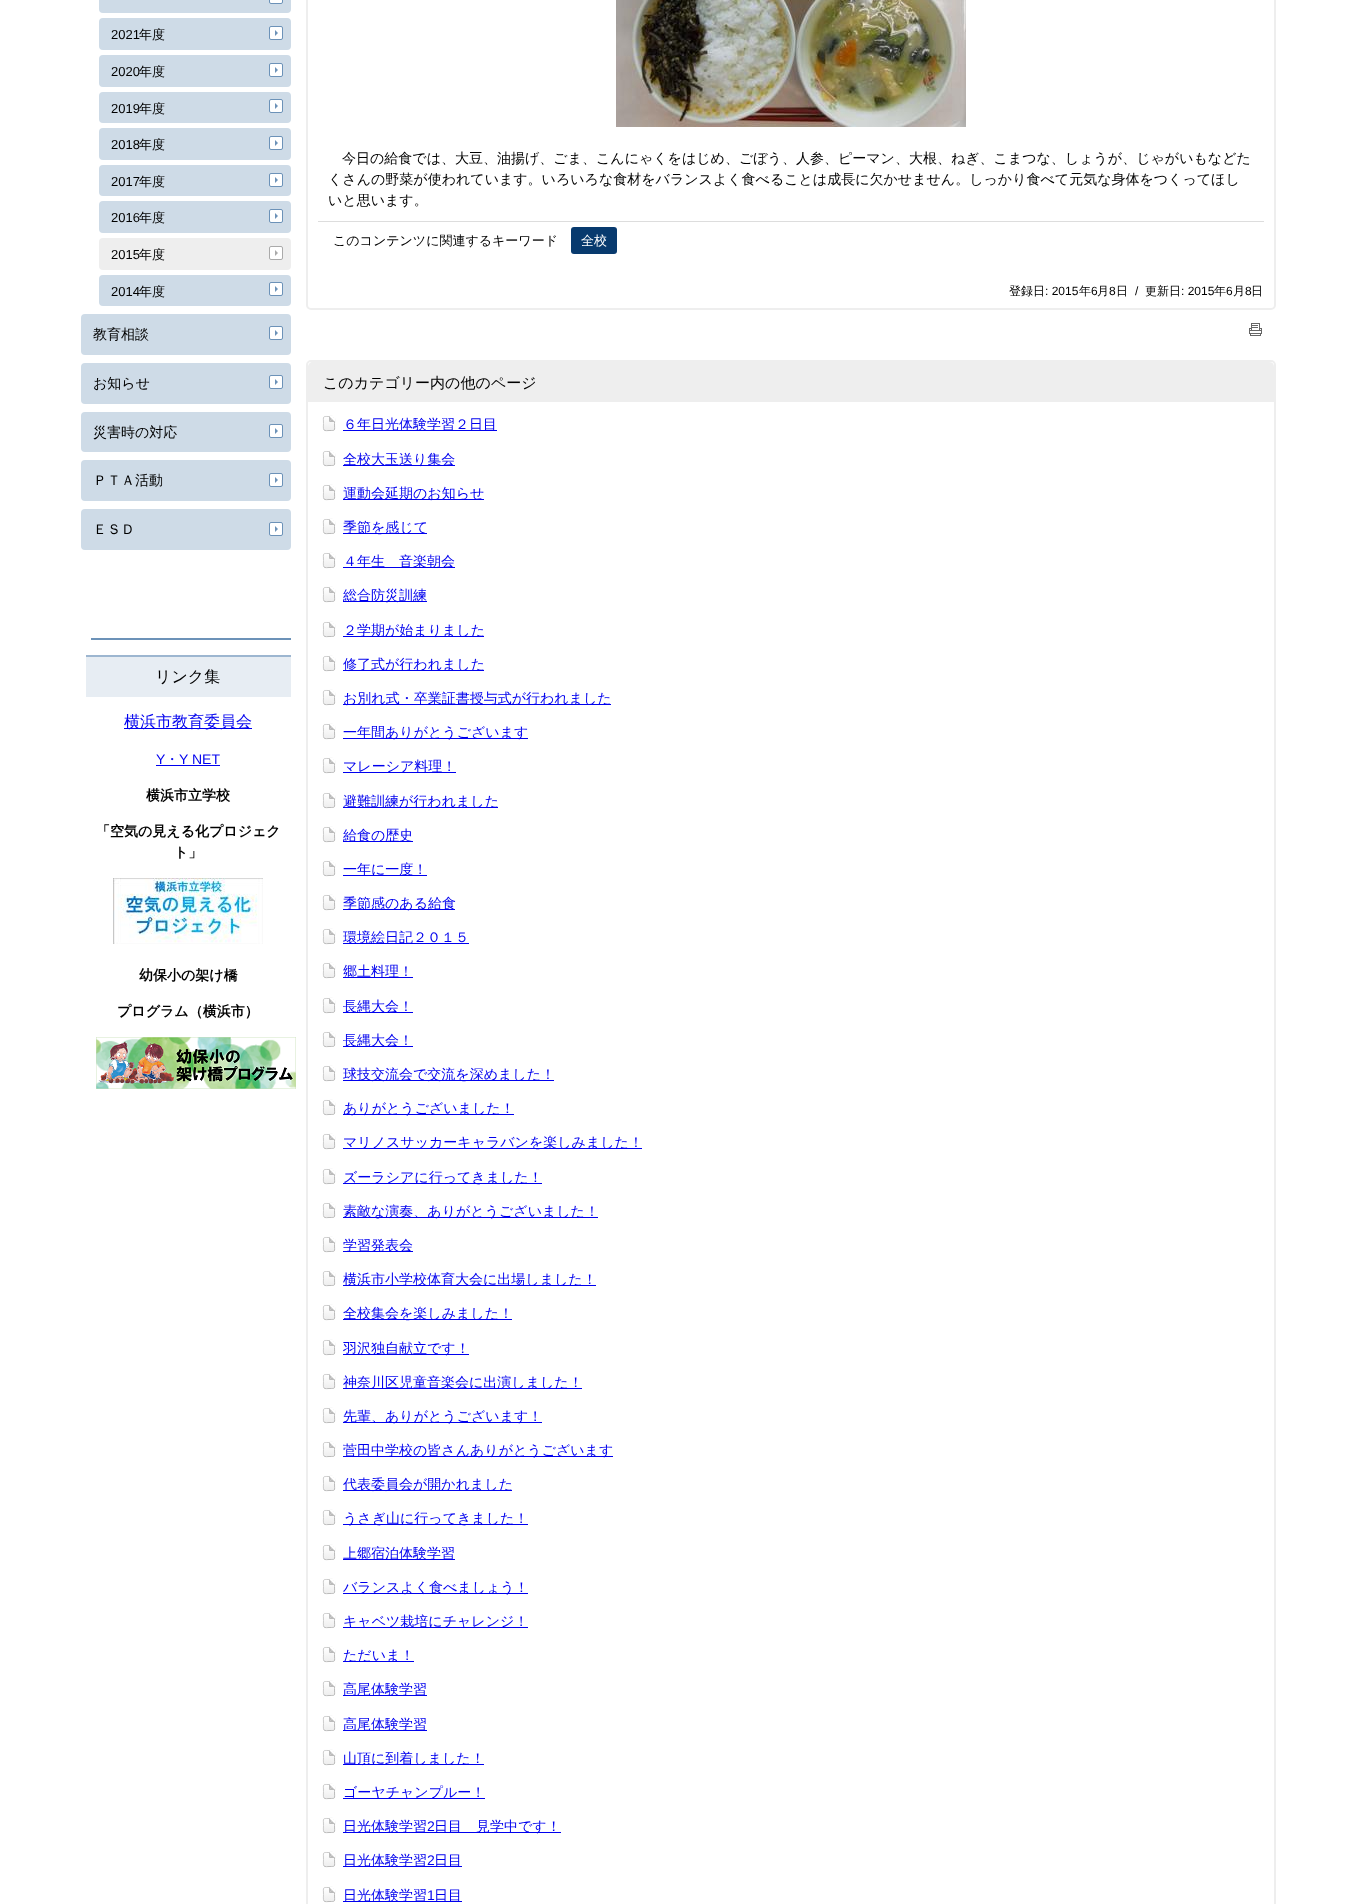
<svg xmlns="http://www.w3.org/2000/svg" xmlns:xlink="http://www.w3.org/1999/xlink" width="1351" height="1904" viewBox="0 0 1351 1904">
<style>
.cls-1{font:13px Liberation Sans;fill:#000000}
.cls-2{font:500 13px WenQuanYi Zen Hei;fill:#000000}
.cls-3{font:500 14px WenQuanYi Zen Hei;fill:#000000}
.cls-4{font:500 16px WenQuanYi Zen Hei;fill:#000000}
.cls-5{font:500 16px WenQuanYi Zen Hei;fill:#0000ee}
.cls-6{font:14px Liberation Sans;fill:#0000ee}
.cls-7{font:500 14px WenQuanYi Zen Hei;fill:#0000ee}
.cls-8{font:bold 14px WenQuanYi Zen Hei;fill:#000000}
.cls-9{font:500 13px WenQuanYi Zen Hei;fill:#ffffff}
.cls-10{font:500 12px WenQuanYi Zen Hei;fill:#000000}
.cls-11{font:12px Liberation Sans;fill:#000000}
.cls-12{font:500 15px WenQuanYi Zen Hei;fill:#000000}
</style>
<defs>
<clipPath id="clip1"><rect x="323" y="416" width="12" height="15" rx="2"/></clipPath>
<linearGradient id="g1" gradientUnits="userSpaceOnUse" x1="329" y1="417" x2="329" y2="430"><stop offset="0" stop-color="#ffffff"/><stop offset="1" stop-color="#eeeeee"/></linearGradient>
<clipPath id="clip2"><rect x="323" y="451" width="12" height="15" rx="2"/></clipPath>
<linearGradient id="g2" gradientUnits="userSpaceOnUse" x1="329" y1="452" x2="329" y2="465"><stop offset="0" stop-color="#ffffff"/><stop offset="1" stop-color="#eeeeee"/></linearGradient>
<clipPath id="clip3"><rect x="323" y="485" width="12" height="15" rx="2"/></clipPath>
<linearGradient id="g3" gradientUnits="userSpaceOnUse" x1="329" y1="486" x2="329" y2="499"><stop offset="0" stop-color="#ffffff"/><stop offset="1" stop-color="#eeeeee"/></linearGradient>
<clipPath id="clip4"><rect x="323" y="519" width="12" height="15" rx="2"/></clipPath>
<linearGradient id="g4" gradientUnits="userSpaceOnUse" x1="329" y1="520" x2="329" y2="533"><stop offset="0" stop-color="#ffffff"/><stop offset="1" stop-color="#eeeeee"/></linearGradient>
<clipPath id="clip5"><rect x="323" y="553" width="12" height="15" rx="2"/></clipPath>
<linearGradient id="g5" gradientUnits="userSpaceOnUse" x1="329" y1="554" x2="329" y2="567"><stop offset="0" stop-color="#ffffff"/><stop offset="1" stop-color="#eeeeee"/></linearGradient>
<clipPath id="clip6"><rect x="323" y="587" width="12" height="15" rx="2"/></clipPath>
<linearGradient id="g6" gradientUnits="userSpaceOnUse" x1="329" y1="588" x2="329" y2="601"><stop offset="0" stop-color="#ffffff"/><stop offset="1" stop-color="#eeeeee"/></linearGradient>
<clipPath id="clip7"><rect x="323" y="622" width="12" height="15" rx="2"/></clipPath>
<linearGradient id="g7" gradientUnits="userSpaceOnUse" x1="329" y1="623" x2="329" y2="636"><stop offset="0" stop-color="#ffffff"/><stop offset="1" stop-color="#eeeeee"/></linearGradient>
<clipPath id="clip8"><rect x="323" y="656" width="12" height="15" rx="2"/></clipPath>
<linearGradient id="g8" gradientUnits="userSpaceOnUse" x1="329" y1="657" x2="329" y2="670"><stop offset="0" stop-color="#ffffff"/><stop offset="1" stop-color="#eeeeee"/></linearGradient>
<clipPath id="clip9"><rect x="323" y="690" width="12" height="15" rx="2"/></clipPath>
<linearGradient id="g9" gradientUnits="userSpaceOnUse" x1="329" y1="691" x2="329" y2="704"><stop offset="0" stop-color="#ffffff"/><stop offset="1" stop-color="#eeeeee"/></linearGradient>
<clipPath id="clip10"><rect x="323" y="724" width="12" height="15" rx="2"/></clipPath>
<linearGradient id="g10" gradientUnits="userSpaceOnUse" x1="329" y1="725" x2="329" y2="738"><stop offset="0" stop-color="#ffffff"/><stop offset="1" stop-color="#eeeeee"/></linearGradient>
<clipPath id="clip11"><rect x="323" y="758" width="12" height="15" rx="2"/></clipPath>
<linearGradient id="g11" gradientUnits="userSpaceOnUse" x1="329" y1="759" x2="329" y2="772"><stop offset="0" stop-color="#ffffff"/><stop offset="1" stop-color="#eeeeee"/></linearGradient>
<clipPath id="clip12"><rect x="323" y="793" width="12" height="15" rx="2"/></clipPath>
<linearGradient id="g12" gradientUnits="userSpaceOnUse" x1="329" y1="794" x2="329" y2="807"><stop offset="0" stop-color="#ffffff"/><stop offset="1" stop-color="#eeeeee"/></linearGradient>
<clipPath id="clip13"><rect x="323" y="827" width="12" height="15" rx="2"/></clipPath>
<linearGradient id="g13" gradientUnits="userSpaceOnUse" x1="329" y1="828" x2="329" y2="841"><stop offset="0" stop-color="#ffffff"/><stop offset="1" stop-color="#eeeeee"/></linearGradient>
<clipPath id="clip14"><rect x="323" y="861" width="12" height="15" rx="2"/></clipPath>
<linearGradient id="g14" gradientUnits="userSpaceOnUse" x1="329" y1="862" x2="329" y2="875"><stop offset="0" stop-color="#ffffff"/><stop offset="1" stop-color="#eeeeee"/></linearGradient>
<clipPath id="clip15"><rect x="323" y="895" width="12" height="15" rx="2"/></clipPath>
<linearGradient id="g15" gradientUnits="userSpaceOnUse" x1="329" y1="896" x2="329" y2="909"><stop offset="0" stop-color="#ffffff"/><stop offset="1" stop-color="#eeeeee"/></linearGradient>
<clipPath id="clip16"><rect x="323" y="929" width="12" height="15" rx="2"/></clipPath>
<linearGradient id="g16" gradientUnits="userSpaceOnUse" x1="329" y1="930" x2="329" y2="943"><stop offset="0" stop-color="#ffffff"/><stop offset="1" stop-color="#eeeeee"/></linearGradient>
<clipPath id="clip17"><rect x="323" y="963" width="12" height="15" rx="2"/></clipPath>
<linearGradient id="g17" gradientUnits="userSpaceOnUse" x1="329" y1="964" x2="329" y2="977"><stop offset="0" stop-color="#ffffff"/><stop offset="1" stop-color="#eeeeee"/></linearGradient>
<clipPath id="clip18"><rect x="323" y="998" width="12" height="15" rx="2"/></clipPath>
<linearGradient id="g18" gradientUnits="userSpaceOnUse" x1="329" y1="999" x2="329" y2="1012"><stop offset="0" stop-color="#ffffff"/><stop offset="1" stop-color="#eeeeee"/></linearGradient>
<clipPath id="clip19"><rect x="323" y="1032" width="12" height="15" rx="2"/></clipPath>
<linearGradient id="g19" gradientUnits="userSpaceOnUse" x1="329" y1="1033" x2="329" y2="1046"><stop offset="0" stop-color="#ffffff"/><stop offset="1" stop-color="#eeeeee"/></linearGradient>
<clipPath id="clip20"><rect x="323" y="1066" width="12" height="15" rx="2"/></clipPath>
<linearGradient id="g20" gradientUnits="userSpaceOnUse" x1="329" y1="1067" x2="329" y2="1080"><stop offset="0" stop-color="#ffffff"/><stop offset="1" stop-color="#eeeeee"/></linearGradient>
<clipPath id="clip21"><rect x="323" y="1100" width="12" height="15" rx="2"/></clipPath>
<linearGradient id="g21" gradientUnits="userSpaceOnUse" x1="329" y1="1101" x2="329" y2="1114"><stop offset="0" stop-color="#ffffff"/><stop offset="1" stop-color="#eeeeee"/></linearGradient>
<clipPath id="clip22"><rect x="323" y="1134" width="12" height="15" rx="2"/></clipPath>
<linearGradient id="g22" gradientUnits="userSpaceOnUse" x1="329" y1="1135" x2="329" y2="1148"><stop offset="0" stop-color="#ffffff"/><stop offset="1" stop-color="#eeeeee"/></linearGradient>
<clipPath id="clip23"><rect x="323" y="1169" width="12" height="15" rx="2"/></clipPath>
<linearGradient id="g23" gradientUnits="userSpaceOnUse" x1="329" y1="1170" x2="329" y2="1183"><stop offset="0" stop-color="#ffffff"/><stop offset="1" stop-color="#eeeeee"/></linearGradient>
<clipPath id="clip24"><rect x="323" y="1203" width="12" height="15" rx="2"/></clipPath>
<linearGradient id="g24" gradientUnits="userSpaceOnUse" x1="329" y1="1204" x2="329" y2="1217"><stop offset="0" stop-color="#ffffff"/><stop offset="1" stop-color="#eeeeee"/></linearGradient>
<clipPath id="clip25"><rect x="323" y="1237" width="12" height="15" rx="2"/></clipPath>
<linearGradient id="g25" gradientUnits="userSpaceOnUse" x1="329" y1="1238" x2="329" y2="1251"><stop offset="0" stop-color="#ffffff"/><stop offset="1" stop-color="#eeeeee"/></linearGradient>
<clipPath id="clip26"><rect x="323" y="1271" width="12" height="15" rx="2"/></clipPath>
<linearGradient id="g26" gradientUnits="userSpaceOnUse" x1="329" y1="1272" x2="329" y2="1285"><stop offset="0" stop-color="#ffffff"/><stop offset="1" stop-color="#eeeeee"/></linearGradient>
<clipPath id="clip27"><rect x="323" y="1305" width="12" height="15" rx="2"/></clipPath>
<linearGradient id="g27" gradientUnits="userSpaceOnUse" x1="329" y1="1306" x2="329" y2="1319"><stop offset="0" stop-color="#ffffff"/><stop offset="1" stop-color="#eeeeee"/></linearGradient>
<clipPath id="clip28"><rect x="323" y="1340" width="12" height="15" rx="2"/></clipPath>
<linearGradient id="g28" gradientUnits="userSpaceOnUse" x1="329" y1="1341" x2="329" y2="1354"><stop offset="0" stop-color="#ffffff"/><stop offset="1" stop-color="#eeeeee"/></linearGradient>
<clipPath id="clip29"><rect x="323" y="1374" width="12" height="15" rx="2"/></clipPath>
<linearGradient id="g29" gradientUnits="userSpaceOnUse" x1="329" y1="1375" x2="329" y2="1388"><stop offset="0" stop-color="#ffffff"/><stop offset="1" stop-color="#eeeeee"/></linearGradient>
<clipPath id="clip30"><rect x="323" y="1408" width="12" height="15" rx="2"/></clipPath>
<linearGradient id="g30" gradientUnits="userSpaceOnUse" x1="329" y1="1409" x2="329" y2="1422"><stop offset="0" stop-color="#ffffff"/><stop offset="1" stop-color="#eeeeee"/></linearGradient>
<clipPath id="clip31"><rect x="323" y="1442" width="12" height="15" rx="2"/></clipPath>
<linearGradient id="g31" gradientUnits="userSpaceOnUse" x1="329" y1="1443" x2="329" y2="1456"><stop offset="0" stop-color="#ffffff"/><stop offset="1" stop-color="#eeeeee"/></linearGradient>
<clipPath id="clip32"><rect x="323" y="1476" width="12" height="15" rx="2"/></clipPath>
<linearGradient id="g32" gradientUnits="userSpaceOnUse" x1="329" y1="1477" x2="329" y2="1490"><stop offset="0" stop-color="#ffffff"/><stop offset="1" stop-color="#eeeeee"/></linearGradient>
<clipPath id="clip33"><rect x="323" y="1510" width="12" height="15" rx="2"/></clipPath>
<linearGradient id="g33" gradientUnits="userSpaceOnUse" x1="329" y1="1511" x2="329" y2="1524"><stop offset="0" stop-color="#ffffff"/><stop offset="1" stop-color="#eeeeee"/></linearGradient>
<clipPath id="clip34"><rect x="323" y="1545" width="12" height="15" rx="2"/></clipPath>
<linearGradient id="g34" gradientUnits="userSpaceOnUse" x1="329" y1="1546" x2="329" y2="1559"><stop offset="0" stop-color="#ffffff"/><stop offset="1" stop-color="#eeeeee"/></linearGradient>
<clipPath id="clip35"><rect x="323" y="1579" width="12" height="15" rx="2"/></clipPath>
<linearGradient id="g35" gradientUnits="userSpaceOnUse" x1="329" y1="1580" x2="329" y2="1593"><stop offset="0" stop-color="#ffffff"/><stop offset="1" stop-color="#eeeeee"/></linearGradient>
<clipPath id="clip36"><rect x="323" y="1613" width="12" height="15" rx="2"/></clipPath>
<linearGradient id="g36" gradientUnits="userSpaceOnUse" x1="329" y1="1614" x2="329" y2="1627"><stop offset="0" stop-color="#ffffff"/><stop offset="1" stop-color="#eeeeee"/></linearGradient>
<clipPath id="clip37"><rect x="323" y="1647" width="12" height="15" rx="2"/></clipPath>
<linearGradient id="g37" gradientUnits="userSpaceOnUse" x1="329" y1="1648" x2="329" y2="1661"><stop offset="0" stop-color="#ffffff"/><stop offset="1" stop-color="#eeeeee"/></linearGradient>
<clipPath id="clip38"><rect x="323" y="1681" width="12" height="15" rx="2"/></clipPath>
<linearGradient id="g38" gradientUnits="userSpaceOnUse" x1="329" y1="1682" x2="329" y2="1695"><stop offset="0" stop-color="#ffffff"/><stop offset="1" stop-color="#eeeeee"/></linearGradient>
<clipPath id="clip39"><rect x="323" y="1716" width="12" height="15" rx="2"/></clipPath>
<linearGradient id="g39" gradientUnits="userSpaceOnUse" x1="329" y1="1717" x2="329" y2="1730"><stop offset="0" stop-color="#ffffff"/><stop offset="1" stop-color="#eeeeee"/></linearGradient>
<clipPath id="clip40"><rect x="323" y="1750" width="12" height="15" rx="2"/></clipPath>
<linearGradient id="g40" gradientUnits="userSpaceOnUse" x1="329" y1="1751" x2="329" y2="1764"><stop offset="0" stop-color="#ffffff"/><stop offset="1" stop-color="#eeeeee"/></linearGradient>
<clipPath id="clip41"><rect x="323" y="1784" width="12" height="15" rx="2"/></clipPath>
<linearGradient id="g41" gradientUnits="userSpaceOnUse" x1="329" y1="1785" x2="329" y2="1798"><stop offset="0" stop-color="#ffffff"/><stop offset="1" stop-color="#eeeeee"/></linearGradient>
<clipPath id="clip42"><rect x="323" y="1818" width="12" height="15" rx="2"/></clipPath>
<linearGradient id="g42" gradientUnits="userSpaceOnUse" x1="329" y1="1819" x2="329" y2="1832"><stop offset="0" stop-color="#ffffff"/><stop offset="1" stop-color="#eeeeee"/></linearGradient>
<clipPath id="clip43"><rect x="323" y="1852" width="12" height="15" rx="2"/></clipPath>
<linearGradient id="g43" gradientUnits="userSpaceOnUse" x1="329" y1="1853" x2="329" y2="1866"><stop offset="0" stop-color="#ffffff"/><stop offset="1" stop-color="#eeeeee"/></linearGradient>
<clipPath id="clip44"><rect x="323" y="1887" width="12" height="15" rx="2"/></clipPath>
<linearGradient id="g44" gradientUnits="userSpaceOnUse" x1="329" y1="1888" x2="329" y2="1901"><stop offset="0" stop-color="#ffffff"/><stop offset="1" stop-color="#eeeeee"/></linearGradient>
</defs>
<rect width="100%" height="100%" fill="#ffffff"/>
<rect fill="#cedbe7" x="99" y="-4" width="192" height="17" rx="4"/>
<rect fill="#ffffff" stroke="#6c92b8" x="269.5" y="-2.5" width="13" height="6" rx="1.5"/>
<rect fill="#cedbe7" x="99" y="18" width="192" height="32" rx="4"/>
<rect fill="#ffffff" stroke="#6c92b8" x="269.5" y="26.5" width="13" height="13" rx="1.5"/>
<path fill="#6c92b8" d="M275 36V30L278 33Z"/>
<rect fill="#cedbe7" x="99" y="55" width="192" height="32" rx="4"/>
<rect fill="#ffffff" stroke="#6c92b8" x="269.5" y="63.5" width="13" height="13" rx="1.5"/>
<path fill="#6c92b8" d="M275 73V67L278 70Z"/>
<rect fill="#cedbe7" x="99" y="92" width="192" height="31" rx="4"/>
<rect fill="#ffffff" stroke="#6c92b8" x="269.5" y="99.5" width="13" height="13" rx="1.5"/>
<path fill="#6c92b8" d="M275 109V103L278 106Z"/>
<rect fill="#cedbe7" x="99" y="128" width="192" height="32" rx="4"/>
<rect fill="#ffffff" stroke="#6c92b8" x="269.5" y="136.5" width="13" height="13" rx="1.5"/>
<path fill="#6c92b8" d="M275 146V140L278 143Z"/>
<rect fill="#cedbe7" x="99" y="165" width="192" height="31" rx="4"/>
<rect fill="#ffffff" stroke="#6c92b8" x="269.5" y="173.5" width="13" height="13" rx="1.5"/>
<path fill="#6c92b8" d="M275 183V177L278 180Z"/>
<rect fill="#cedbe7" x="99" y="201" width="192" height="32" rx="4"/>
<rect fill="#ffffff" stroke="#6c92b8" x="269.5" y="209.5" width="13" height="13" rx="1.5"/>
<path fill="#6c92b8" d="M275 219V213L278 216Z"/>
<rect fill="#eeeeee" x="99" y="238" width="192" height="32" rx="4"/>
<rect fill="#ffffff" stroke="#aaaaaa" x="269.5" y="246.5" width="13" height="13" rx="1.5"/>
<path fill="#aaaaaa" d="M275 256V250L278 253Z"/>
<rect fill="#cedbe7" x="99" y="275" width="192" height="31" rx="4"/>
<rect fill="#ffffff" stroke="#6c92b8" x="269.5" y="282.5" width="13" height="13" rx="1.5"/>
<path fill="#6c92b8" d="M275 292V286L278 289Z"/>
<rect fill="#cedbe7" x="81" y="314" width="210" height="41" rx="4"/>
<rect fill="#ffffff" stroke="#6c92b8" x="269.5" y="326.5" width="13" height="13" rx="1.5"/>
<path fill="#6c92b8" d="M275 336V330L278 333Z"/>
<rect fill="#cedbe7" x="81" y="363" width="210" height="41" rx="4"/>
<rect fill="#ffffff" stroke="#6c92b8" x="269.5" y="375.5" width="13" height="13" rx="1.5"/>
<path fill="#6c92b8" d="M275 385V379L278 382Z"/>
<rect fill="#cedbe7" x="81" y="412" width="210" height="40" rx="4"/>
<rect fill="#ffffff" stroke="#6c92b8" x="269.5" y="424.5" width="13" height="13" rx="1.5"/>
<path fill="#6c92b8" d="M275 434V428L278 431Z"/>
<rect fill="#cedbe7" x="81" y="460" width="210" height="41" rx="4"/>
<rect fill="#ffffff" stroke="#6c92b8" x="269.5" y="473.5" width="13" height="13" rx="1.5"/>
<path fill="#6c92b8" d="M275 483V477L278 480Z"/>
<rect fill="#cedbe7" x="81" y="509" width="210" height="41" rx="4"/>
<rect fill="#ffffff" stroke="#6c92b8" x="269.5" y="522.5" width="13" height="13" rx="1.5"/>
<path fill="#6c92b8" d="M275 532V526L278 529Z"/>
<rect fill="#6c92b8" x="91" y="638" width="200" height="2"/>
<rect fill="#e7edf3" x="86" y="657" width="205" height="40"/>
<rect fill="#9db6d0" x="86" y="655" width="205" height="2"/>
<rect fill="#0000ee" x="124" y="728" width="128" height="1"/>
<rect fill="#0000ee" x="156" y="765" width="64" height="1"/>
<image xlink:href="image0.png" x="113" y="878" width="150" height="66"/>
<image xlink:href="image1.png" x="96" y="1037" width="200" height="52"/>
<rect fill="none" stroke="#eeeeee" stroke-width="2" x="307" y="-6" width="968" height="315" rx="4"/>
<image xlink:href="image2.png" x="616" y="0" width="350" height="127"/>
<rect fill="#dddddd" x="318" y="221" width="946" height="1"/>
<rect fill="#083a6e" x="571" y="227" width="46" height="27" rx="3"/>
<image xlink:href="image3.png" x="1249" y="323" width="13" height="13"/>
<rect fill="none" stroke="#eeeeee" stroke-width="2" x="307" y="361" width="968" height="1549" rx="4"/>
<path fill="#eeeeee" d="M313 362H1269C1272 362 1274 364 1274 367V402H308V367C308 364 310 362 313 362Z"/>
<g clip-path="url(#clip1)">
<rect fill="url(#g1)" x="323" y="417" width="12" height="13"/>
</g>
<path fill="none" stroke="#bbbbbb" d="M334 417C335 418 334.5 422 334.5 423.5C334.5 431 336 430.5 329 430.5C328 430.5 325 431 324 430"/>
<path fill="none" stroke="#cccccc" d="M324 430C323 429 323.5 425 323.5 423.5C323.5 416 322 416.5 329 416.5C330 416.5 333 416 334 417"/>
<path fill="#ffffff" d="M329 416H335L332 419Z"/>
<path fill="#ffffff" d="M335 416V422L332 419Z"/>
<path fill="#bbbbbb" d="M335 422H329L332 419Z"/>
<path fill="#bbbbbb" d="M329 422V416L332 419Z"/>
<rect fill="#0000ee" x="343" y="430" width="154" height="1"/>
<g clip-path="url(#clip2)">
<rect fill="url(#g2)" x="323" y="452" width="12" height="13"/>
</g>
<path fill="none" stroke="#bbbbbb" d="M334 452C335 453 334.5 457 334.5 458.5C334.5 466 336 465.5 329 465.5C328 465.5 325 466 324 465"/>
<path fill="none" stroke="#cccccc" d="M324 465C323 464 323.5 460 323.5 458.5C323.5 451 322 451.5 329 451.5C330 451.5 333 451 334 452"/>
<path fill="#ffffff" d="M329 451H335L332 454Z"/>
<path fill="#ffffff" d="M335 451V457L332 454Z"/>
<path fill="#bbbbbb" d="M335 457H329L332 454Z"/>
<path fill="#bbbbbb" d="M329 457V451L332 454Z"/>
<rect fill="#0000ee" x="343" y="465" width="112" height="1"/>
<g clip-path="url(#clip3)">
<rect fill="url(#g3)" x="323" y="486" width="12" height="13"/>
</g>
<path fill="none" stroke="#bbbbbb" d="M334 486C335 487 334.5 491 334.5 492.5C334.5 500 336 499.5 329 499.5C328 499.5 325 500 324 499"/>
<path fill="none" stroke="#cccccc" d="M324 499C323 498 323.5 494 323.5 492.5C323.5 485 322 485.5 329 485.5C330 485.5 333 485 334 486"/>
<path fill="#ffffff" d="M329 485H335L332 488Z"/>
<path fill="#ffffff" d="M335 485V491L332 488Z"/>
<path fill="#bbbbbb" d="M335 491H329L332 488Z"/>
<path fill="#bbbbbb" d="M329 491V485L332 488Z"/>
<rect fill="#0000ee" x="343" y="499" width="141" height="1"/>
<g clip-path="url(#clip4)">
<rect fill="url(#g4)" x="323" y="520" width="12" height="13"/>
</g>
<path fill="none" stroke="#bbbbbb" d="M334 520C335 521 334.5 525 334.5 526.5C334.5 534 336 533.5 329 533.5C328 533.5 325 534 324 533"/>
<path fill="none" stroke="#cccccc" d="M324 533C323 532 323.5 528 323.5 526.5C323.5 519 322 519.5 329 519.5C330 519.5 333 519 334 520"/>
<path fill="#ffffff" d="M329 519H335L332 522Z"/>
<path fill="#ffffff" d="M335 519V525L332 522Z"/>
<path fill="#bbbbbb" d="M335 525H329L332 522Z"/>
<path fill="#bbbbbb" d="M329 525V519L332 522Z"/>
<rect fill="#0000ee" x="343" y="533" width="84" height="1"/>
<g clip-path="url(#clip5)">
<rect fill="url(#g5)" x="323" y="554" width="12" height="13"/>
</g>
<path fill="none" stroke="#bbbbbb" d="M334 554C335 555 334.5 559 334.5 560.5C334.5 568 336 567.5 329 567.5C328 567.5 325 568 324 567"/>
<path fill="none" stroke="#cccccc" d="M324 567C323 566 323.5 562 323.5 560.5C323.5 553 322 553.5 329 553.5C330 553.5 333 553 334 554"/>
<path fill="#ffffff" d="M329 553H335L332 556Z"/>
<path fill="#ffffff" d="M335 553V559L332 556Z"/>
<path fill="#bbbbbb" d="M335 559H329L332 556Z"/>
<path fill="#bbbbbb" d="M329 559V553L332 556Z"/>
<rect fill="#0000ee" x="343" y="567" width="112" height="1"/>
<g clip-path="url(#clip6)">
<rect fill="url(#g6)" x="323" y="588" width="12" height="13"/>
</g>
<path fill="none" stroke="#bbbbbb" d="M334 588C335 589 334.5 593 334.5 594.5C334.5 602 336 601.5 329 601.5C328 601.5 325 602 324 601"/>
<path fill="none" stroke="#cccccc" d="M324 601C323 600 323.5 596 323.5 594.5C323.5 587 322 587.5 329 587.5C330 587.5 333 587 334 588"/>
<path fill="#ffffff" d="M329 587H335L332 590Z"/>
<path fill="#ffffff" d="M335 587V593L332 590Z"/>
<path fill="#bbbbbb" d="M335 593H329L332 590Z"/>
<path fill="#bbbbbb" d="M329 593V587L332 590Z"/>
<rect fill="#0000ee" x="343" y="601" width="84" height="1"/>
<g clip-path="url(#clip7)">
<rect fill="url(#g7)" x="323" y="623" width="12" height="13"/>
</g>
<path fill="none" stroke="#bbbbbb" d="M334 623C335 624 334.5 628 334.5 629.5C334.5 637 336 636.5 329 636.5C328 636.5 325 637 324 636"/>
<path fill="none" stroke="#cccccc" d="M324 636C323 635 323.5 631 323.5 629.5C323.5 622 322 622.5 329 622.5C330 622.5 333 622 334 623"/>
<path fill="#ffffff" d="M329 622H335L332 625Z"/>
<path fill="#ffffff" d="M335 622V628L332 625Z"/>
<path fill="#bbbbbb" d="M335 628H329L332 625Z"/>
<path fill="#bbbbbb" d="M329 628V622L332 625Z"/>
<rect fill="#0000ee" x="343" y="636" width="141" height="1"/>
<g clip-path="url(#clip8)">
<rect fill="url(#g8)" x="323" y="657" width="12" height="13"/>
</g>
<path fill="none" stroke="#bbbbbb" d="M334 657C335 658 334.5 662 334.5 663.5C334.5 671 336 670.5 329 670.5C328 670.5 325 671 324 670"/>
<path fill="none" stroke="#cccccc" d="M324 670C323 669 323.5 665 323.5 663.5C323.5 656 322 656.5 329 656.5C330 656.5 333 656 334 657"/>
<path fill="#ffffff" d="M329 656H335L332 659Z"/>
<path fill="#ffffff" d="M335 656V662L332 659Z"/>
<path fill="#bbbbbb" d="M335 662H329L332 659Z"/>
<path fill="#bbbbbb" d="M329 662V656L332 659Z"/>
<rect fill="#0000ee" x="343" y="670" width="141" height="1"/>
<g clip-path="url(#clip9)">
<rect fill="url(#g9)" x="323" y="691" width="12" height="13"/>
</g>
<path fill="none" stroke="#bbbbbb" d="M334 691C335 692 334.5 696 334.5 697.5C334.5 705 336 704.5 329 704.5C328 704.5 325 705 324 704"/>
<path fill="none" stroke="#cccccc" d="M324 704C323 703 323.5 699 323.5 697.5C323.5 690 322 690.5 329 690.5C330 690.5 333 690 334 691"/>
<path fill="#ffffff" d="M329 690H335L332 693Z"/>
<path fill="#ffffff" d="M335 690V696L332 693Z"/>
<path fill="#bbbbbb" d="M335 696H329L332 693Z"/>
<path fill="#bbbbbb" d="M329 696V690L332 693Z"/>
<rect fill="#0000ee" x="343" y="704" width="268" height="1"/>
<g clip-path="url(#clip10)">
<rect fill="url(#g10)" x="323" y="725" width="12" height="13"/>
</g>
<path fill="none" stroke="#bbbbbb" d="M334 725C335 726 334.5 730 334.5 731.5C334.5 739 336 738.5 329 738.5C328 738.5 325 739 324 738"/>
<path fill="none" stroke="#cccccc" d="M324 738C323 737 323.5 733 323.5 731.5C323.5 724 322 724.5 329 724.5C330 724.5 333 724 334 725"/>
<path fill="#ffffff" d="M329 724H335L332 727Z"/>
<path fill="#ffffff" d="M335 724V730L332 727Z"/>
<path fill="#bbbbbb" d="M335 730H329L332 727Z"/>
<path fill="#bbbbbb" d="M329 730V724L332 727Z"/>
<rect fill="#0000ee" x="343" y="738" width="185" height="1"/>
<g clip-path="url(#clip11)">
<rect fill="url(#g11)" x="323" y="759" width="12" height="13"/>
</g>
<path fill="none" stroke="#bbbbbb" d="M334 759C335 760 334.5 764 334.5 765.5C334.5 773 336 772.5 329 772.5C328 772.5 325 773 324 772"/>
<path fill="none" stroke="#cccccc" d="M324 772C323 771 323.5 767 323.5 765.5C323.5 758 322 758.5 329 758.5C330 758.5 333 758 334 759"/>
<path fill="#ffffff" d="M329 758H335L332 761Z"/>
<path fill="#ffffff" d="M335 758V764L332 761Z"/>
<path fill="#bbbbbb" d="M335 764H329L332 761Z"/>
<path fill="#bbbbbb" d="M329 764V758L332 761Z"/>
<rect fill="#0000ee" x="343" y="772" width="113" height="1"/>
<g clip-path="url(#clip12)">
<rect fill="url(#g12)" x="323" y="794" width="12" height="13"/>
</g>
<path fill="none" stroke="#bbbbbb" d="M334 794C335 795 334.5 799 334.5 800.5C334.5 808 336 807.5 329 807.5C328 807.5 325 808 324 807"/>
<path fill="none" stroke="#cccccc" d="M324 807C323 806 323.5 802 323.5 800.5C323.5 793 322 793.5 329 793.5C330 793.5 333 793 334 794"/>
<path fill="#ffffff" d="M329 793H335L332 796Z"/>
<path fill="#ffffff" d="M335 793V799L332 796Z"/>
<path fill="#bbbbbb" d="M335 799H329L332 796Z"/>
<path fill="#bbbbbb" d="M329 799V793L332 796Z"/>
<rect fill="#0000ee" x="343" y="807" width="155" height="1"/>
<g clip-path="url(#clip13)">
<rect fill="url(#g13)" x="323" y="828" width="12" height="13"/>
</g>
<path fill="none" stroke="#bbbbbb" d="M334 828C335 829 334.5 833 334.5 834.5C334.5 842 336 841.5 329 841.5C328 841.5 325 842 324 841"/>
<path fill="none" stroke="#cccccc" d="M324 841C323 840 323.5 836 323.5 834.5C323.5 827 322 827.5 329 827.5C330 827.5 333 827 334 828"/>
<path fill="#ffffff" d="M329 827H335L332 830Z"/>
<path fill="#ffffff" d="M335 827V833L332 830Z"/>
<path fill="#bbbbbb" d="M335 833H329L332 830Z"/>
<path fill="#bbbbbb" d="M329 833V827L332 830Z"/>
<rect fill="#0000ee" x="343" y="841" width="70" height="1"/>
<g clip-path="url(#clip14)">
<rect fill="url(#g14)" x="323" y="862" width="12" height="13"/>
</g>
<path fill="none" stroke="#bbbbbb" d="M334 862C335 863 334.5 867 334.5 868.5C334.5 876 336 875.5 329 875.5C328 875.5 325 876 324 875"/>
<path fill="none" stroke="#cccccc" d="M324 875C323 874 323.5 870 323.5 868.5C323.5 861 322 861.5 329 861.5C330 861.5 333 861 334 862"/>
<path fill="#ffffff" d="M329 861H335L332 864Z"/>
<path fill="#ffffff" d="M335 861V867L332 864Z"/>
<path fill="#bbbbbb" d="M335 867H329L332 864Z"/>
<path fill="#bbbbbb" d="M329 867V861L332 864Z"/>
<rect fill="#0000ee" x="343" y="875" width="84" height="1"/>
<g clip-path="url(#clip15)">
<rect fill="url(#g15)" x="323" y="896" width="12" height="13"/>
</g>
<path fill="none" stroke="#bbbbbb" d="M334 896C335 897 334.5 901 334.5 902.5C334.5 910 336 909.5 329 909.5C328 909.5 325 910 324 909"/>
<path fill="none" stroke="#cccccc" d="M324 909C323 908 323.5 904 323.5 902.5C323.5 895 322 895.5 329 895.5C330 895.5 333 895 334 896"/>
<path fill="#ffffff" d="M329 895H335L332 898Z"/>
<path fill="#ffffff" d="M335 895V901L332 898Z"/>
<path fill="#bbbbbb" d="M335 901H329L332 898Z"/>
<path fill="#bbbbbb" d="M329 901V895L332 898Z"/>
<rect fill="#0000ee" x="343" y="909" width="112" height="1"/>
<g clip-path="url(#clip16)">
<rect fill="url(#g16)" x="323" y="930" width="12" height="13"/>
</g>
<path fill="none" stroke="#bbbbbb" d="M334 930C335 931 334.5 935 334.5 936.5C334.5 944 336 943.5 329 943.5C328 943.5 325 944 324 943"/>
<path fill="none" stroke="#cccccc" d="M324 943C323 942 323.5 938 323.5 936.5C323.5 929 322 929.5 329 929.5C330 929.5 333 929 334 930"/>
<path fill="#ffffff" d="M329 929H335L332 932Z"/>
<path fill="#ffffff" d="M335 929V935L332 932Z"/>
<path fill="#bbbbbb" d="M335 935H329L332 932Z"/>
<path fill="#bbbbbb" d="M329 935V929L332 932Z"/>
<rect fill="#0000ee" x="343" y="943" width="126" height="1"/>
<g clip-path="url(#clip17)">
<rect fill="url(#g17)" x="323" y="964" width="12" height="13"/>
</g>
<path fill="none" stroke="#bbbbbb" d="M334 964C335 965 334.5 969 334.5 970.5C334.5 978 336 977.5 329 977.5C328 977.5 325 978 324 977"/>
<path fill="none" stroke="#cccccc" d="M324 977C323 976 323.5 972 323.5 970.5C323.5 963 322 963.5 329 963.5C330 963.5 333 963 334 964"/>
<path fill="#ffffff" d="M329 963H335L332 966Z"/>
<path fill="#ffffff" d="M335 963V969L332 966Z"/>
<path fill="#bbbbbb" d="M335 969H329L332 966Z"/>
<path fill="#bbbbbb" d="M329 969V963L332 966Z"/>
<rect fill="#0000ee" x="343" y="977" width="70" height="1"/>
<g clip-path="url(#clip18)">
<rect fill="url(#g18)" x="323" y="999" width="12" height="13"/>
</g>
<path fill="none" stroke="#bbbbbb" d="M334 999C335 1000 334.5 1004 334.5 1005.5C334.5 1013 336 1012.5 329 1012.5C328 1012.5 325 1013 324 1012"/>
<path fill="none" stroke="#cccccc" d="M324 1012C323 1011 323.5 1007 323.5 1005.5C323.5 998 322 998.5 329 998.5C330 998.5 333 998 334 999"/>
<path fill="#ffffff" d="M329 998H335L332 1001Z"/>
<path fill="#ffffff" d="M335 998V1004L332 1001Z"/>
<path fill="#bbbbbb" d="M335 1004H329L332 1001Z"/>
<path fill="#bbbbbb" d="M329 1004V998L332 1001Z"/>
<rect fill="#0000ee" x="343" y="1012" width="70" height="1"/>
<g clip-path="url(#clip19)">
<rect fill="url(#g19)" x="323" y="1033" width="12" height="13"/>
</g>
<path fill="none" stroke="#bbbbbb" d="M334 1033C335 1034 334.5 1038 334.5 1039.5C334.5 1047 336 1046.5 329 1046.5C328 1046.5 325 1047 324 1046"/>
<path fill="none" stroke="#cccccc" d="M324 1046C323 1045 323.5 1041 323.5 1039.5C323.5 1032 322 1032.5 329 1032.5C330 1032.5 333 1032 334 1033"/>
<path fill="#ffffff" d="M329 1032H335L332 1035Z"/>
<path fill="#ffffff" d="M335 1032V1038L332 1035Z"/>
<path fill="#bbbbbb" d="M335 1038H329L332 1035Z"/>
<path fill="#bbbbbb" d="M329 1038V1032L332 1035Z"/>
<rect fill="#0000ee" x="343" y="1046" width="70" height="1"/>
<g clip-path="url(#clip20)">
<rect fill="url(#g20)" x="323" y="1067" width="12" height="13"/>
</g>
<path fill="none" stroke="#bbbbbb" d="M334 1067C335 1068 334.5 1072 334.5 1073.5C334.5 1081 336 1080.5 329 1080.5C328 1080.5 325 1081 324 1080"/>
<path fill="none" stroke="#cccccc" d="M324 1080C323 1079 323.5 1075 323.5 1073.5C323.5 1066 322 1066.5 329 1066.5C330 1066.5 333 1066 334 1067"/>
<path fill="#ffffff" d="M329 1066H335L332 1069Z"/>
<path fill="#ffffff" d="M335 1066V1072L332 1069Z"/>
<path fill="#bbbbbb" d="M335 1072H329L332 1069Z"/>
<path fill="#bbbbbb" d="M329 1072V1066L332 1069Z"/>
<rect fill="#0000ee" x="343" y="1080" width="211" height="1"/>
<g clip-path="url(#clip21)">
<rect fill="url(#g21)" x="323" y="1101" width="12" height="13"/>
</g>
<path fill="none" stroke="#bbbbbb" d="M334 1101C335 1102 334.5 1106 334.5 1107.5C334.5 1115 336 1114.5 329 1114.5C328 1114.5 325 1115 324 1114"/>
<path fill="none" stroke="#cccccc" d="M324 1114C323 1113 323.5 1109 323.5 1107.5C323.5 1100 322 1100.5 329 1100.5C330 1100.5 333 1100 334 1101"/>
<path fill="#ffffff" d="M329 1100H335L332 1103Z"/>
<path fill="#ffffff" d="M335 1100V1106L332 1103Z"/>
<path fill="#bbbbbb" d="M335 1106H329L332 1103Z"/>
<path fill="#bbbbbb" d="M329 1106V1100L332 1103Z"/>
<rect fill="#0000ee" x="343" y="1114" width="171" height="1"/>
<g clip-path="url(#clip22)">
<rect fill="url(#g22)" x="323" y="1135" width="12" height="13"/>
</g>
<path fill="none" stroke="#bbbbbb" d="M334 1135C335 1136 334.5 1140 334.5 1141.5C334.5 1149 336 1148.5 329 1148.5C328 1148.5 325 1149 324 1148"/>
<path fill="none" stroke="#cccccc" d="M324 1148C323 1147 323.5 1143 323.5 1141.5C323.5 1134 322 1134.5 329 1134.5C330 1134.5 333 1134 334 1135"/>
<path fill="#ffffff" d="M329 1134H335L332 1137Z"/>
<path fill="#ffffff" d="M335 1134V1140L332 1137Z"/>
<path fill="#bbbbbb" d="M335 1140H329L332 1137Z"/>
<path fill="#bbbbbb" d="M329 1140V1134L332 1137Z"/>
<rect fill="#0000ee" x="343" y="1148" width="299" height="1"/>
<g clip-path="url(#clip23)">
<rect fill="url(#g23)" x="323" y="1170" width="12" height="13"/>
</g>
<path fill="none" stroke="#bbbbbb" d="M334 1170C335 1171 334.5 1175 334.5 1176.5C334.5 1184 336 1183.5 329 1183.5C328 1183.5 325 1184 324 1183"/>
<path fill="none" stroke="#cccccc" d="M324 1183C323 1182 323.5 1178 323.5 1176.5C323.5 1169 322 1169.5 329 1169.5C330 1169.5 333 1169 334 1170"/>
<path fill="#ffffff" d="M329 1169H335L332 1172Z"/>
<path fill="#ffffff" d="M335 1169V1175L332 1172Z"/>
<path fill="#bbbbbb" d="M335 1175H329L332 1172Z"/>
<path fill="#bbbbbb" d="M329 1175V1169L332 1172Z"/>
<rect fill="#0000ee" x="343" y="1183" width="199" height="1"/>
<g clip-path="url(#clip24)">
<rect fill="url(#g24)" x="323" y="1204" width="12" height="13"/>
</g>
<path fill="none" stroke="#bbbbbb" d="M334 1204C335 1205 334.5 1209 334.5 1210.5C334.5 1218 336 1217.5 329 1217.5C328 1217.5 325 1218 324 1217"/>
<path fill="none" stroke="#cccccc" d="M324 1217C323 1216 323.5 1212 323.5 1210.5C323.5 1203 322 1203.5 329 1203.5C330 1203.5 333 1203 334 1204"/>
<path fill="#ffffff" d="M329 1203H335L332 1206Z"/>
<path fill="#ffffff" d="M335 1203V1209L332 1206Z"/>
<path fill="#bbbbbb" d="M335 1209H329L332 1206Z"/>
<path fill="#bbbbbb" d="M329 1209V1203L332 1206Z"/>
<rect fill="#0000ee" x="343" y="1217" width="255" height="1"/>
<g clip-path="url(#clip25)">
<rect fill="url(#g25)" x="323" y="1238" width="12" height="13"/>
</g>
<path fill="none" stroke="#bbbbbb" d="M334 1238C335 1239 334.5 1243 334.5 1244.5C334.5 1252 336 1251.5 329 1251.5C328 1251.5 325 1252 324 1251"/>
<path fill="none" stroke="#cccccc" d="M324 1251C323 1250 323.5 1246 323.5 1244.5C323.5 1237 322 1237.5 329 1237.5C330 1237.5 333 1237 334 1238"/>
<path fill="#ffffff" d="M329 1237H335L332 1240Z"/>
<path fill="#ffffff" d="M335 1237V1243L332 1240Z"/>
<path fill="#bbbbbb" d="M335 1243H329L332 1240Z"/>
<path fill="#bbbbbb" d="M329 1243V1237L332 1240Z"/>
<rect fill="#0000ee" x="343" y="1251" width="70" height="1"/>
<g clip-path="url(#clip26)">
<rect fill="url(#g26)" x="323" y="1272" width="12" height="13"/>
</g>
<path fill="none" stroke="#bbbbbb" d="M334 1272C335 1273 334.5 1277 334.5 1278.5C334.5 1286 336 1285.5 329 1285.5C328 1285.5 325 1286 324 1285"/>
<path fill="none" stroke="#cccccc" d="M324 1285C323 1284 323.5 1280 323.5 1278.5C323.5 1271 322 1271.5 329 1271.5C330 1271.5 333 1271 334 1272"/>
<path fill="#ffffff" d="M329 1271H335L332 1274Z"/>
<path fill="#ffffff" d="M335 1271V1277L332 1274Z"/>
<path fill="#bbbbbb" d="M335 1277H329L332 1274Z"/>
<path fill="#bbbbbb" d="M329 1277V1271L332 1274Z"/>
<rect fill="#0000ee" x="343" y="1285" width="253" height="1"/>
<g clip-path="url(#clip27)">
<rect fill="url(#g27)" x="323" y="1306" width="12" height="13"/>
</g>
<path fill="none" stroke="#bbbbbb" d="M334 1306C335 1307 334.5 1311 334.5 1312.5C334.5 1320 336 1319.5 329 1319.5C328 1319.5 325 1320 324 1319"/>
<path fill="none" stroke="#cccccc" d="M324 1319C323 1318 323.5 1314 323.5 1312.5C323.5 1305 322 1305.5 329 1305.5C330 1305.5 333 1305 334 1306"/>
<path fill="#ffffff" d="M329 1305H335L332 1308Z"/>
<path fill="#ffffff" d="M335 1305V1311L332 1308Z"/>
<path fill="#bbbbbb" d="M335 1311H329L332 1308Z"/>
<path fill="#bbbbbb" d="M329 1311V1305L332 1308Z"/>
<rect fill="#0000ee" x="343" y="1319" width="169" height="1"/>
<g clip-path="url(#clip28)">
<rect fill="url(#g28)" x="323" y="1341" width="12" height="13"/>
</g>
<path fill="none" stroke="#bbbbbb" d="M334 1341C335 1342 334.5 1346 334.5 1347.5C334.5 1355 336 1354.5 329 1354.5C328 1354.5 325 1355 324 1354"/>
<path fill="none" stroke="#cccccc" d="M324 1354C323 1353 323.5 1349 323.5 1347.5C323.5 1340 322 1340.5 329 1340.5C330 1340.5 333 1340 334 1341"/>
<path fill="#ffffff" d="M329 1340H335L332 1343Z"/>
<path fill="#ffffff" d="M335 1340V1346L332 1343Z"/>
<path fill="#bbbbbb" d="M335 1346H329L332 1343Z"/>
<path fill="#bbbbbb" d="M329 1346V1340L332 1343Z"/>
<rect fill="#0000ee" x="343" y="1354" width="126" height="1"/>
<g clip-path="url(#clip29)">
<rect fill="url(#g29)" x="323" y="1375" width="12" height="13"/>
</g>
<path fill="none" stroke="#bbbbbb" d="M334 1375C335 1376 334.5 1380 334.5 1381.5C334.5 1389 336 1388.5 329 1388.5C328 1388.5 325 1389 324 1388"/>
<path fill="none" stroke="#cccccc" d="M324 1388C323 1387 323.5 1383 323.5 1381.5C323.5 1374 322 1374.5 329 1374.5C330 1374.5 333 1374 334 1375"/>
<path fill="#ffffff" d="M329 1374H335L332 1377Z"/>
<path fill="#ffffff" d="M335 1374V1380L332 1377Z"/>
<path fill="#bbbbbb" d="M335 1380H329L332 1377Z"/>
<path fill="#bbbbbb" d="M329 1380V1374L332 1377Z"/>
<rect fill="#0000ee" x="343" y="1388" width="239" height="1"/>
<g clip-path="url(#clip30)">
<rect fill="url(#g30)" x="323" y="1409" width="12" height="13"/>
</g>
<path fill="none" stroke="#bbbbbb" d="M334 1409C335 1410 334.5 1414 334.5 1415.5C334.5 1423 336 1422.5 329 1422.5C328 1422.5 325 1423 324 1422"/>
<path fill="none" stroke="#cccccc" d="M324 1422C323 1421 323.5 1417 323.5 1415.5C323.5 1408 322 1408.5 329 1408.5C330 1408.5 333 1408 334 1409"/>
<path fill="#ffffff" d="M329 1408H335L332 1411Z"/>
<path fill="#ffffff" d="M335 1408V1414L332 1411Z"/>
<path fill="#bbbbbb" d="M335 1414H329L332 1411Z"/>
<path fill="#bbbbbb" d="M329 1414V1408L332 1411Z"/>
<rect fill="#0000ee" x="343" y="1422" width="199" height="1"/>
<g clip-path="url(#clip31)">
<rect fill="url(#g31)" x="323" y="1443" width="12" height="13"/>
</g>
<path fill="none" stroke="#bbbbbb" d="M334 1443C335 1444 334.5 1448 334.5 1449.5C334.5 1457 336 1456.5 329 1456.5C328 1456.5 325 1457 324 1456"/>
<path fill="none" stroke="#cccccc" d="M324 1456C323 1455 323.5 1451 323.5 1449.5C323.5 1442 322 1442.5 329 1442.5C330 1442.5 333 1442 334 1443"/>
<path fill="#ffffff" d="M329 1442H335L332 1445Z"/>
<path fill="#ffffff" d="M335 1442V1448L332 1445Z"/>
<path fill="#bbbbbb" d="M335 1448H329L332 1445Z"/>
<path fill="#bbbbbb" d="M329 1448V1442L332 1445Z"/>
<rect fill="#0000ee" x="343" y="1456" width="270" height="1"/>
<g clip-path="url(#clip32)">
<rect fill="url(#g32)" x="323" y="1477" width="12" height="13"/>
</g>
<path fill="none" stroke="#bbbbbb" d="M334 1477C335 1478 334.5 1482 334.5 1483.5C334.5 1491 336 1490.5 329 1490.5C328 1490.5 325 1491 324 1490"/>
<path fill="none" stroke="#cccccc" d="M324 1490C323 1489 323.5 1485 323.5 1483.5C323.5 1476 322 1476.5 329 1476.5C330 1476.5 333 1476 334 1477"/>
<path fill="#ffffff" d="M329 1476H335L332 1479Z"/>
<path fill="#ffffff" d="M335 1476V1482L332 1479Z"/>
<path fill="#bbbbbb" d="M335 1482H329L332 1479Z"/>
<path fill="#bbbbbb" d="M329 1482V1476L332 1479Z"/>
<rect fill="#0000ee" x="343" y="1490" width="169" height="1"/>
<g clip-path="url(#clip33)">
<rect fill="url(#g33)" x="323" y="1511" width="12" height="13"/>
</g>
<path fill="none" stroke="#bbbbbb" d="M334 1511C335 1512 334.5 1516 334.5 1517.5C334.5 1525 336 1524.5 329 1524.5C328 1524.5 325 1525 324 1524"/>
<path fill="none" stroke="#cccccc" d="M324 1524C323 1523 323.5 1519 323.5 1517.5C323.5 1510 322 1510.5 329 1510.5C330 1510.5 333 1510 334 1511"/>
<path fill="#ffffff" d="M329 1510H335L332 1513Z"/>
<path fill="#ffffff" d="M335 1510V1516L332 1513Z"/>
<path fill="#bbbbbb" d="M335 1516H329L332 1513Z"/>
<path fill="#bbbbbb" d="M329 1516V1510L332 1513Z"/>
<rect fill="#0000ee" x="343" y="1524" width="185" height="1"/>
<g clip-path="url(#clip34)">
<rect fill="url(#g34)" x="323" y="1546" width="12" height="13"/>
</g>
<path fill="none" stroke="#bbbbbb" d="M334 1546C335 1547 334.5 1551 334.5 1552.5C334.5 1560 336 1559.5 329 1559.5C328 1559.5 325 1560 324 1559"/>
<path fill="none" stroke="#cccccc" d="M324 1559C323 1558 323.5 1554 323.5 1552.5C323.5 1545 322 1545.5 329 1545.5C330 1545.5 333 1545 334 1546"/>
<path fill="#ffffff" d="M329 1545H335L332 1548Z"/>
<path fill="#ffffff" d="M335 1545V1551L332 1548Z"/>
<path fill="#bbbbbb" d="M335 1551H329L332 1548Z"/>
<path fill="#bbbbbb" d="M329 1551V1545L332 1548Z"/>
<rect fill="#0000ee" x="343" y="1559" width="112" height="1"/>
<g clip-path="url(#clip35)">
<rect fill="url(#g35)" x="323" y="1580" width="12" height="13"/>
</g>
<path fill="none" stroke="#bbbbbb" d="M334 1580C335 1581 334.5 1585 334.5 1586.5C334.5 1594 336 1593.5 329 1593.5C328 1593.5 325 1594 324 1593"/>
<path fill="none" stroke="#cccccc" d="M324 1593C323 1592 323.5 1588 323.5 1586.5C323.5 1579 322 1579.5 329 1579.5C330 1579.5 333 1579 334 1580"/>
<path fill="#ffffff" d="M329 1579H335L332 1582Z"/>
<path fill="#ffffff" d="M335 1579V1585L332 1582Z"/>
<path fill="#bbbbbb" d="M335 1585H329L332 1582Z"/>
<path fill="#bbbbbb" d="M329 1585V1579L332 1582Z"/>
<rect fill="#0000ee" x="343" y="1593" width="185" height="1"/>
<g clip-path="url(#clip36)">
<rect fill="url(#g36)" x="323" y="1614" width="12" height="13"/>
</g>
<path fill="none" stroke="#bbbbbb" d="M334 1614C335 1615 334.5 1619 334.5 1620.5C334.5 1628 336 1627.5 329 1627.5C328 1627.5 325 1628 324 1627"/>
<path fill="none" stroke="#cccccc" d="M324 1627C323 1626 323.5 1622 323.5 1620.5C323.5 1613 322 1613.5 329 1613.5C330 1613.5 333 1613 334 1614"/>
<path fill="#ffffff" d="M329 1613H335L332 1616Z"/>
<path fill="#ffffff" d="M335 1613V1619L332 1616Z"/>
<path fill="#bbbbbb" d="M335 1619H329L332 1616Z"/>
<path fill="#bbbbbb" d="M329 1619V1613L332 1616Z"/>
<rect fill="#0000ee" x="343" y="1627" width="185" height="1"/>
<g clip-path="url(#clip37)">
<rect fill="url(#g37)" x="323" y="1648" width="12" height="13"/>
</g>
<path fill="none" stroke="#bbbbbb" d="M334 1648C335 1649 334.5 1653 334.5 1654.5C334.5 1662 336 1661.5 329 1661.5C328 1661.5 325 1662 324 1661"/>
<path fill="none" stroke="#cccccc" d="M324 1661C323 1660 323.5 1656 323.5 1654.5C323.5 1647 322 1647.5 329 1647.5C330 1647.5 333 1647 334 1648"/>
<path fill="#ffffff" d="M329 1647H335L332 1650Z"/>
<path fill="#ffffff" d="M335 1647V1653L332 1650Z"/>
<path fill="#bbbbbb" d="M335 1653H329L332 1650Z"/>
<path fill="#bbbbbb" d="M329 1653V1647L332 1650Z"/>
<rect fill="#0000ee" x="343" y="1661" width="71" height="1"/>
<g clip-path="url(#clip38)">
<rect fill="url(#g38)" x="323" y="1682" width="12" height="13"/>
</g>
<path fill="none" stroke="#bbbbbb" d="M334 1682C335 1683 334.5 1687 334.5 1688.5C334.5 1696 336 1695.5 329 1695.5C328 1695.5 325 1696 324 1695"/>
<path fill="none" stroke="#cccccc" d="M324 1695C323 1694 323.5 1690 323.5 1688.5C323.5 1681 322 1681.5 329 1681.5C330 1681.5 333 1681 334 1682"/>
<path fill="#ffffff" d="M329 1681H335L332 1684Z"/>
<path fill="#ffffff" d="M335 1681V1687L332 1684Z"/>
<path fill="#bbbbbb" d="M335 1687H329L332 1684Z"/>
<path fill="#bbbbbb" d="M329 1687V1681L332 1684Z"/>
<rect fill="#0000ee" x="343" y="1695" width="84" height="1"/>
<g clip-path="url(#clip39)">
<rect fill="url(#g39)" x="323" y="1717" width="12" height="13"/>
</g>
<path fill="none" stroke="#bbbbbb" d="M334 1717C335 1718 334.5 1722 334.5 1723.5C334.5 1731 336 1730.5 329 1730.5C328 1730.5 325 1731 324 1730"/>
<path fill="none" stroke="#cccccc" d="M324 1730C323 1729 323.5 1725 323.5 1723.5C323.5 1716 322 1716.5 329 1716.5C330 1716.5 333 1716 334 1717"/>
<path fill="#ffffff" d="M329 1716H335L332 1719Z"/>
<path fill="#ffffff" d="M335 1716V1722L332 1719Z"/>
<path fill="#bbbbbb" d="M335 1722H329L332 1719Z"/>
<path fill="#bbbbbb" d="M329 1722V1716L332 1719Z"/>
<rect fill="#0000ee" x="343" y="1730" width="84" height="1"/>
<g clip-path="url(#clip40)">
<rect fill="url(#g40)" x="323" y="1751" width="12" height="13"/>
</g>
<path fill="none" stroke="#bbbbbb" d="M334 1751C335 1752 334.5 1756 334.5 1757.5C334.5 1765 336 1764.5 329 1764.5C328 1764.5 325 1765 324 1764"/>
<path fill="none" stroke="#cccccc" d="M324 1764C323 1763 323.5 1759 323.5 1757.5C323.5 1750 322 1750.5 329 1750.5C330 1750.5 333 1750 334 1751"/>
<path fill="#ffffff" d="M329 1750H335L332 1753Z"/>
<path fill="#ffffff" d="M335 1750V1756L332 1753Z"/>
<path fill="#bbbbbb" d="M335 1756H329L332 1753Z"/>
<path fill="#bbbbbb" d="M329 1756V1750L332 1753Z"/>
<rect fill="#0000ee" x="343" y="1764" width="141" height="1"/>
<g clip-path="url(#clip41)">
<rect fill="url(#g41)" x="323" y="1785" width="12" height="13"/>
</g>
<path fill="none" stroke="#bbbbbb" d="M334 1785C335 1786 334.5 1790 334.5 1791.5C334.5 1799 336 1798.5 329 1798.5C328 1798.5 325 1799 324 1798"/>
<path fill="none" stroke="#cccccc" d="M324 1798C323 1797 323.5 1793 323.5 1791.5C323.5 1784 322 1784.5 329 1784.5C330 1784.5 333 1784 334 1785"/>
<path fill="#ffffff" d="M329 1784H335L332 1787Z"/>
<path fill="#ffffff" d="M335 1784V1790L332 1787Z"/>
<path fill="#bbbbbb" d="M335 1790H329L332 1787Z"/>
<path fill="#bbbbbb" d="M329 1790V1784L332 1787Z"/>
<rect fill="#0000ee" x="343" y="1798" width="142" height="1"/>
<g clip-path="url(#clip42)">
<rect fill="url(#g42)" x="323" y="1819" width="12" height="13"/>
</g>
<path fill="none" stroke="#bbbbbb" d="M334 1819C335 1820 334.5 1824 334.5 1825.5C334.5 1833 336 1832.5 329 1832.5C328 1832.5 325 1833 324 1832"/>
<path fill="none" stroke="#cccccc" d="M324 1832C323 1831 323.5 1827 323.5 1825.5C323.5 1818 322 1818.5 329 1818.5C330 1818.5 333 1818 334 1819"/>
<path fill="#ffffff" d="M329 1818H335L332 1821Z"/>
<path fill="#ffffff" d="M335 1818V1824L332 1821Z"/>
<path fill="#bbbbbb" d="M335 1824H329L332 1821Z"/>
<path fill="#bbbbbb" d="M329 1824V1818L332 1821Z"/>
<rect fill="#0000ee" x="343" y="1832" width="218" height="1"/>
<g clip-path="url(#clip43)">
<rect fill="url(#g43)" x="323" y="1853" width="12" height="13"/>
</g>
<path fill="none" stroke="#bbbbbb" d="M334 1853C335 1854 334.5 1858 334.5 1859.5C334.5 1867 336 1866.5 329 1866.5C328 1866.5 325 1867 324 1866"/>
<path fill="none" stroke="#cccccc" d="M324 1866C323 1865 323.5 1861 323.5 1859.5C323.5 1852 322 1852.5 329 1852.5C330 1852.5 333 1852 334 1853"/>
<path fill="#ffffff" d="M329 1852H335L332 1855Z"/>
<path fill="#ffffff" d="M335 1852V1858L332 1855Z"/>
<path fill="#bbbbbb" d="M335 1858H329L332 1855Z"/>
<path fill="#bbbbbb" d="M329 1858V1852L332 1855Z"/>
<rect fill="#0000ee" x="343" y="1866" width="119" height="1"/>
<g clip-path="url(#clip44)">
<rect fill="url(#g44)" x="323" y="1888" width="12" height="13"/>
</g>
<path fill="none" stroke="#bbbbbb" d="M334 1888C335 1889 334.5 1893 334.5 1894.5C334.5 1902 336 1901.5 329 1901.5C328 1901.5 325 1902 324 1901"/>
<path fill="none" stroke="#cccccc" d="M324 1901C323 1900 323.5 1896 323.5 1894.5C323.5 1887 322 1887.5 329 1887.5C330 1887.5 333 1887 334 1888"/>
<path fill="#ffffff" d="M329 1887H335L332 1890Z"/>
<path fill="#ffffff" d="M335 1887V1893L332 1890Z"/>
<path fill="#bbbbbb" d="M335 1893H329L332 1890Z"/>
<path fill="#bbbbbb" d="M329 1893V1887L332 1890Z"/>
<rect fill="#0000ee" x="343" y="1901" width="119" height="1"/>
<text class="cls-1" x="111" y="39">2021</text>
<text class="cls-2" x="139" y="39">年度</text>
<text class="cls-1" x="111" y="76">2020</text>
<text class="cls-2" x="139" y="76">年度</text>
<text class="cls-1" x="111" y="113">2019</text>
<text class="cls-2" x="139" y="113">年度</text>
<text class="cls-1" x="111" y="149">2018</text>
<text class="cls-2" x="139" y="149">年度</text>
<text class="cls-1" x="111" y="186">2017</text>
<text class="cls-2" x="139" y="186">年度</text>
<text class="cls-1" x="111" y="222">2016</text>
<text class="cls-2" x="139" y="222">年度</text>
<text class="cls-1" x="111" y="259">2015</text>
<text class="cls-2" x="139" y="259">年度</text>
<text class="cls-1" x="111" y="296">2014</text>
<text class="cls-2" x="139" y="296">年度</text>
<text class="cls-3" x="93" y="339">教育相談</text>
<text class="cls-3" x="93" y="388">お知らせ</text>
<text class="cls-3" x="93" y="437">災害時の対応</text>
<text class="cls-3" x="93" y="485">ＰＴＡ活動</text>
<text class="cls-3" x="93" y="534">ＥＳＤ</text>
<text class="cls-4" x="155" y="682">リンク集</text>
<text class="cls-5" x="124" y="727">横浜市教育委員会</text>
<text class="cls-6" x="156" y="764">Y</text>
<text class="cls-7" x="165" y="764">・</text>
<text class="cls-6" x="179" y="764">Y NET</text>
<text class="cls-8" x="146" y="800">横浜市立学校</text>
<text class="cls-8" x="96" y="836">「空気の見える化プロジェク</text>
<text class="cls-8" x="174" y="857">ト」</text>
<text class="cls-8" x="139" y="980">幼保小の架け橋</text>
<text class="cls-8" x="117" y="1016">プログラム（横浜市）</text>
<text class="cls-3" x="342" y="163">今日の給食では、大豆、油揚げ、ごま、こんにゃくをはじめ、ごぼう、人参、ピーマン、大根、ねぎ、こまつな、しょうが、じゃがいもなどた</text>
<text class="cls-3"><tspan x="328" y="184">くさんの野菜が使われています。いろいろな食材をバランスよく食べることは成長に欠かせません。しっかり食べて元気な身体をつくってほし</tspan><tspan x="328" y="205">いと思います。</tspan></text>
<text class="cls-2" x="333" y="245">このコンテンツに関連するキーワード</text>
<text class="cls-9" x="581" y="245">全校</text>
<text class="cls-10" x="1009" y="295">登録日</text>
<text class="cls-11" x="1045" y="295">: 2015</text>
<text class="cls-10" x="1079" y="295">年</text>
<text class="cls-11" x="1091" y="295">6</text>
<text class="cls-10" x="1097" y="295">月</text>
<text class="cls-11" x="1109" y="295">8</text>
<text class="cls-10" x="1116" y="295">日</text>
<text class="cls-11" x="1135" y="295">/</text>
<text class="cls-10" x="1145" y="295">更新日</text>
<text class="cls-11" x="1181" y="295">: 2015</text>
<text class="cls-10" x="1214" y="295">年</text>
<text class="cls-11" x="1226" y="295">6</text>
<text class="cls-10" x="1233" y="295">月</text>
<text class="cls-11" x="1245" y="295">8</text>
<text class="cls-10" x="1251" y="295">日</text>
<text class="cls-12" x="323" y="388">このカテゴリー内の他のページ</text>
<text class="cls-7" x="343" y="429">６年日光体験学習２日目</text>
<text class="cls-7" x="343" y="464">全校大玉送り集会</text>
<text class="cls-7" x="343" y="498">運動会延期のお知らせ</text>
<text class="cls-7" x="343" y="532">季節を感じて</text>
<text class="cls-7" x="343" y="566">４年生　音楽朝会</text>
<text class="cls-7" x="343" y="600">総合防災訓練</text>
<text class="cls-7" x="343" y="635">２学期が始まりました</text>
<text class="cls-7" x="343" y="669">修了式が行われました</text>
<text class="cls-7" x="343" y="703">お別れ式・卒業証書授与式が行われました</text>
<text class="cls-7" x="343" y="737">一年間ありがとうございます</text>
<text class="cls-7" x="343" y="771">マレーシア料理！</text>
<text class="cls-7" x="343" y="806">避難訓練が行われました</text>
<text class="cls-7" x="343" y="840">給食の歴史</text>
<text class="cls-7" x="343" y="874">一年に一度！</text>
<text class="cls-7" x="343" y="908">季節感のある給食</text>
<text class="cls-7" x="343" y="942">環境絵日記２０１５</text>
<text class="cls-7" x="343" y="976">郷土料理！</text>
<text class="cls-7" x="343" y="1011">長縄大会！</text>
<text class="cls-7" x="343" y="1045">長縄大会！</text>
<text class="cls-7" x="343" y="1079">球技交流会で交流を深めました！</text>
<text class="cls-7" x="343" y="1113">ありがとうございました！</text>
<text class="cls-7" x="343" y="1147">マリノスサッカーキャラバンを楽しみました！</text>
<text class="cls-7" x="343" y="1182">ズーラシアに行ってきました！</text>
<text class="cls-7" x="343" y="1216">素敵な演奏、ありがとうございました！</text>
<text class="cls-7" x="343" y="1250">学習発表会</text>
<text class="cls-7" x="343" y="1284">横浜市小学校体育大会に出場しました！</text>
<text class="cls-7" x="343" y="1318">全校集会を楽しみました！</text>
<text class="cls-7" x="343" y="1353">羽沢独自献立です！</text>
<text class="cls-7" x="343" y="1387">神奈川区児童音楽会に出演しました！</text>
<text class="cls-7" x="343" y="1421">先輩、ありがとうございます！</text>
<text class="cls-7" x="343" y="1455">菅田中学校の皆さんありがとうございます</text>
<text class="cls-7" x="343" y="1489">代表委員会が開かれました</text>
<text class="cls-7" x="343" y="1523">うさぎ山に行ってきました！</text>
<text class="cls-7" x="343" y="1558">上郷宿泊体験学習</text>
<text class="cls-7" x="343" y="1592">バランスよく食べましょう！</text>
<text class="cls-7" x="343" y="1626">キャベツ栽培にチャレンジ！</text>
<text class="cls-7" x="343" y="1660">ただいま！</text>
<text class="cls-7" x="343" y="1694">高尾体験学習</text>
<text class="cls-7" x="343" y="1729">高尾体験学習</text>
<text class="cls-7" x="343" y="1763">山頂に到着しました！</text>
<text class="cls-7" x="343" y="1797">ゴーヤチャンプルー！</text>
<text class="cls-7" x="343" y="1831">日光体験学習</text>
<text class="cls-6" x="427" y="1831">2</text>
<text class="cls-7" x="434" y="1831">日目　見学中です！</text>
<text class="cls-7" x="343" y="1865">日光体験学習</text>
<text class="cls-6" x="427" y="1865">2</text>
<text class="cls-7" x="434" y="1865">日目</text>
<text class="cls-7" x="343" y="1900">日光体験学習</text>
<text class="cls-6" x="427" y="1900">1</text>
<text class="cls-7" x="434" y="1900">日目</text>
</svg>
